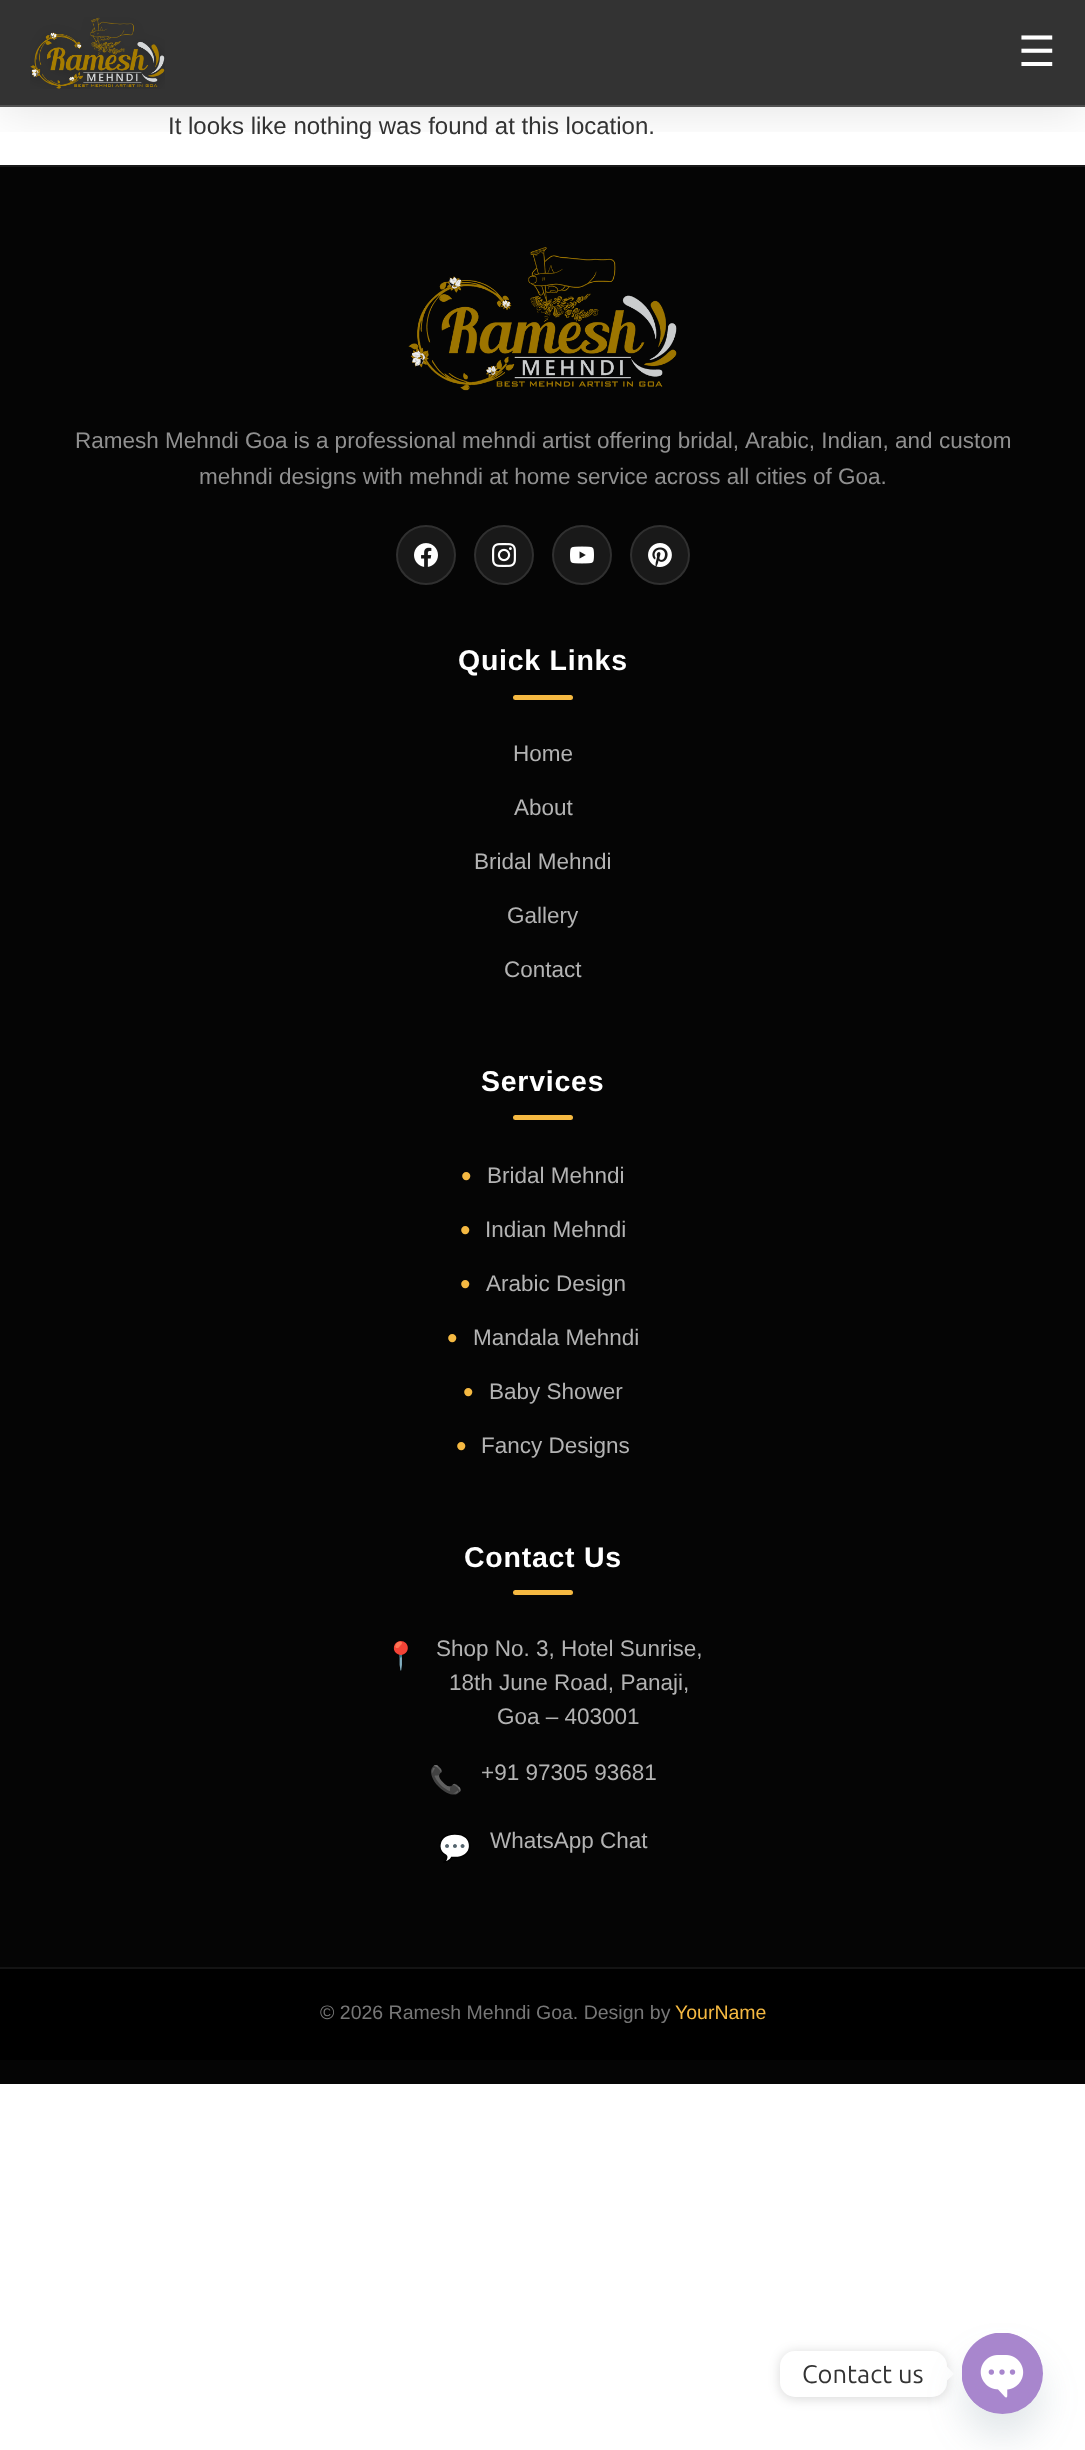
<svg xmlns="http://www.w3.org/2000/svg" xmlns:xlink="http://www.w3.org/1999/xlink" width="1085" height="2450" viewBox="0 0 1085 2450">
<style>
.cls-1{font:42px DejaVu Sans;fill:#ffffff}
.cls-2{font:24px Liberation Sans;fill:#333333}
.cls-3{font:22.5px Liberation Sans;fill:#909090}
.cls-4{font:bold 28.5px Liberation Sans;letter-spacing:0.75px;fill:#ffffff}
.cls-5{font:22.5px Liberation Sans;fill:#b3b3b3}
.cls-6{font:30px Liberation Sans;fill:#f5b942}
.cls-7{font:27px Noto Color Emoji;fill:#f5b942}
.cls-8{font:19.5px Liberation Sans;fill:#777777}
.cls-9{font:19.5px Liberation Sans;fill:#f5b942}
.cls-10{font:25.5px Ubuntu;fill:#333333}
</style>
<defs>
<clipPath id="clip1"><rect x="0" y="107" width="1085" height="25"/></clipPath>
</defs>
<rect width="100%" height="100%" fill="#ffffff"/>
<rect fill="#050505" x="0" y="167" width="1085" height="1917"/>
<rect fill="#191919" x="0" y="165" width="1085" height="2"/>
<g clip-path="url(#clip1)">
<rect fill="#000000" fill-opacity="0.1" filter="blur(22.5px)" x="0" y="6" width="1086" height="107"/>
</g>
<rect fill="#000000" fill-opacity="0.8" x="0" y="0" width="1085" height="105"/>
<rect fill="#515151" x="0" y="105" width="1085" height="2"/>
<image xlink:href="image0.png" x="30" y="17" width="135" height="72"/>
<image xlink:href="image1.png" x="408" y="247" width="269" height="144"/>
<circle fill="#191919" cx="426" cy="555" r="30"/>
<circle fill="none" stroke="#ffffff" stroke-opacity="0.1" stroke-width="2" cx="426" cy="555" r="29"/>
<image xlink:href="image2.png" x="414" y="543" width="24" height="24"/>
<circle fill="#191919" cx="504" cy="555" r="30"/>
<circle fill="none" stroke="#ffffff" stroke-opacity="0.1" stroke-width="2" cx="504" cy="555" r="29"/>
<image xlink:href="image3.png" x="492" y="543" width="24" height="24"/>
<circle fill="#191919" cx="582" cy="555" r="30"/>
<circle fill="none" stroke="#ffffff" stroke-opacity="0.1" stroke-width="2" cx="582" cy="555" r="29"/>
<image xlink:href="image4.png" x="570" y="546" width="24" height="18"/>
<circle fill="#191919" cx="660" cy="555" r="30"/>
<circle fill="none" stroke="#ffffff" stroke-opacity="0.1" stroke-width="2" cx="660" cy="555" r="29"/>
<image xlink:href="image5.png" x="648" y="543" width="24" height="24"/>
<rect fill="#f5b942" x="513" y="695" width="60" height="5" rx="2.5"/>
<rect fill="#f5b942" x="513" y="1115" width="60" height="5" rx="2.5"/>
<rect fill="#f5b942" x="513" y="1590" width="60" height="5" rx="2.5"/>
<rect fill="#000000" x="0" y="1969" width="1085" height="91"/>
<rect fill="#141414" x="0" y="1967" width="1085" height="2"/>
<rect fill="#000000" fill-opacity="0.15" filter="blur(6px)" x="780" y="2352" width="167" height="47" rx="15"/>
<rect fill="#ffffff" x="780" y="2351" width="167" height="46" rx="15"/>
<path fill="#ffffff" d="M946.5 2381V2366L954 2374Z"/>
<rect fill="#49687e" fill-opacity="0.16" filter="blur(18px)" x="962" y="2357" width="81" height="81" rx="40.5"/>
<circle fill="#a886cd" cx="1002.5" cy="2373.5" r="40.5"/>
<image xlink:href="image6.png" x="962" y="2333" width="79" height="79"/>
<text class="cls-1" x="1018" y="66">☰</text>
<text class="cls-2" x="168" y="134">It looks like nothing was found at this location.</text>
<text class="cls-3" x="75" y="448" word-spacing="-0.1">Ramesh Mehndi Goa is a professional mehndi artist offering bridal,</text>
<text class="cls-3" x="745" y="448">Arabic, Indian, and custom</text>
<text class="cls-3" x="199" y="484">mehndi designs with mehndi at home service across all cities of Goa.</text>
<text class="cls-4" x="458" y="670">Quick Links</text>
<text class="cls-5" x="513" y="761">Home</text>
<text class="cls-5" x="514" y="815">About</text>
<text class="cls-5" x="474" y="869">Bridal Mehndi</text>
<text class="cls-5" x="507" y="923">Gallery</text>
<text class="cls-5" x="504" y="977">Contact</text>
<text class="cls-4" x="481" y="1091">Services</text>
<text class="cls-6" x="461" y="1186">•</text>
<text class="cls-5" x="487" y="1183">Bridal Mehndi</text>
<text class="cls-6" x="460" y="1240">•</text>
<text class="cls-5" x="485" y="1237">Indian Mehndi</text>
<text class="cls-6" x="460" y="1294">•</text>
<text class="cls-5" x="486" y="1291">Arabic Design</text>
<text class="cls-6" x="447" y="1348">•</text>
<text class="cls-5" x="473" y="1345">Mandala Mehndi</text>
<text class="cls-6" x="463" y="1402">•</text>
<text class="cls-5" x="489" y="1399">Baby Shower</text>
<text class="cls-6" x="456" y="1456">•</text>
<text class="cls-5" x="481" y="1453">Fancy Designs</text>
<text class="cls-4" x="464" y="1567">Contact Us</text>
<text class="cls-7" x="384" y="1665">📍</text>
<text class="cls-5" x="436" y="1656">Shop No. 3, Hotel Sunrise,</text>
<text class="cls-5" x="449" y="1690">18th June Road, Panaji,</text>
<text class="cls-5" x="497" y="1724">Goa – 403001</text>
<text class="cls-7" x="429" y="1789">📞</text>
<text class="cls-5" x="481" y="1780">+91 97305 93681</text>
<text class="cls-7" x="438" y="1857">💬</text>
<text class="cls-5" x="490" y="1848">WhatsApp Chat</text>
<text class="cls-8" x="320" y="2019">© 2026 Ramesh Mehndi Goa. Design by</text>
<text class="cls-9" x="675" y="2019">YourName</text>
<text class="cls-10" x="802" y="2383">Contact us</text>
</svg>
